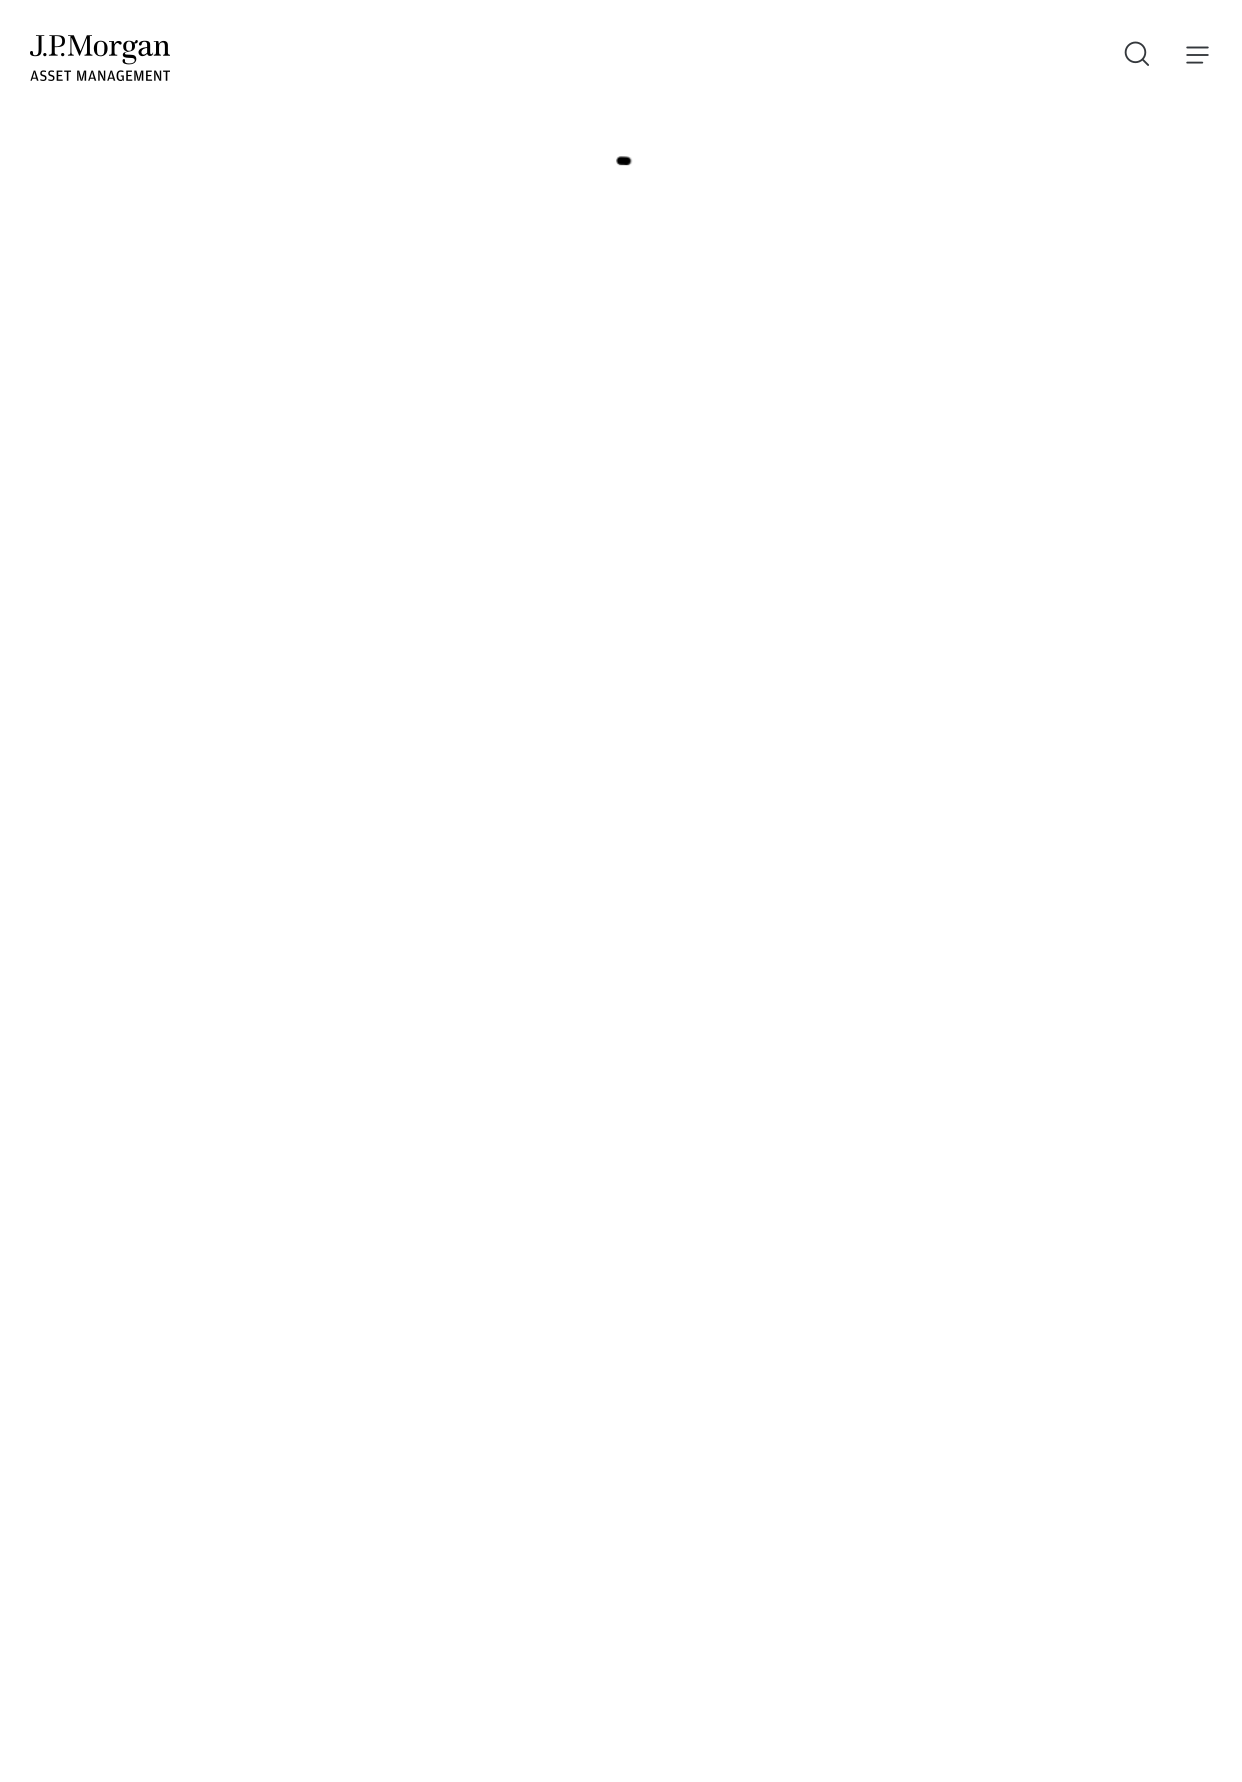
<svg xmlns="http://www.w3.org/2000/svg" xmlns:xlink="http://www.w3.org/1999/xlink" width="1242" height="1782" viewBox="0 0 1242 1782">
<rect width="100%" height="100%" fill="#ffffff"/>
<image xlink:href="image0.png" x="30" y="35" width="140" height="46"/>
<image xlink:href="image1.png" x="1124" y="41" width="25" height="25"/>
<image xlink:href="image2.png" x="1186" y="46" width="23" height="18"/>
<image xlink:href="image3.png" x="616" y="156" width="17" height="10"/>
</svg>
